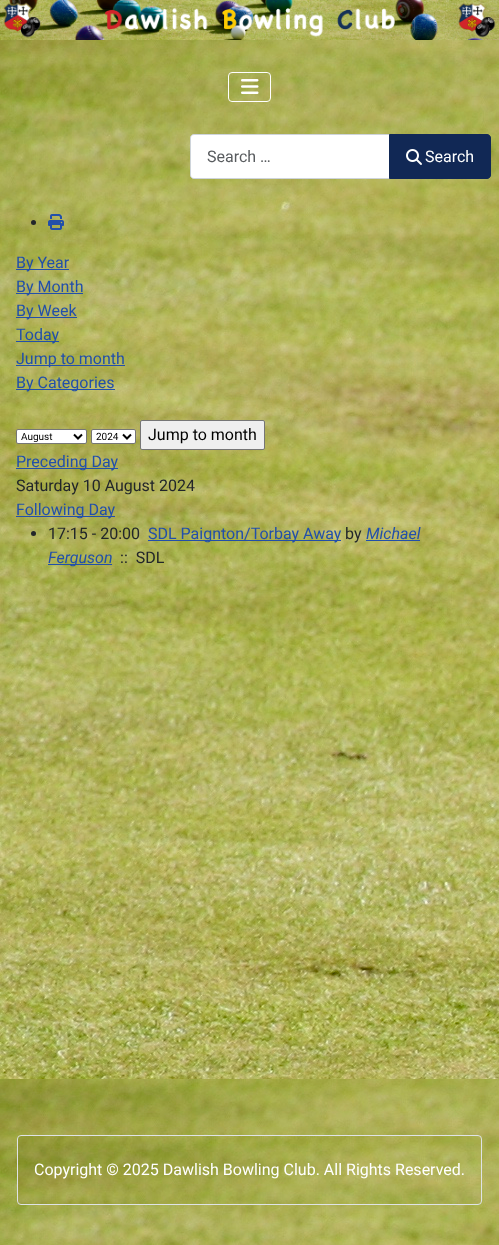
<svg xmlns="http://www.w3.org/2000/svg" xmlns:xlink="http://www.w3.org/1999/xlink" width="499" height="1245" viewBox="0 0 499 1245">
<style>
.cls-1{font:16px Roboto;fill:#595c5f}
.cls-2{font:16px Roboto;fill:#ffffff}
.cls-3{font:16px Roboto;fill:#224faa}
.cls-4{font:10px Roboto;fill:#000000}
.cls-5{font:16px Roboto;fill:#000000}
.cls-6{font:16px Roboto;fill:#22262a}
.cls-7{font:italic 16px Roboto;fill:#224faa}
</style>
<rect width="100%" height="100%" fill="#ffffff"/>
<image xlink:href="image0.png" x="0" y="195" width="499" height="884"/>
<image xlink:href="image1.png" x="0" y="40" width="499" height="155"/>
<image xlink:href="image2.png" x="0" y="0" width="499" height="40"/>
<rect fill="none" stroke="#ffffff" x="228.5" y="72.5" width="42" height="29" rx="3.5"/>
<image xlink:href="image3.png" x="241" y="79" width="18" height="15"/>
<path fill="#ffffff" stroke="#ced4da" d="M194 134.5H389.5V178.5H194C192 178.5 190.5 177 190.5 175V138C190.5 136 192 134.5 194 134.5Z"/>
<path fill="#112855" stroke="#112855" d="M389.5 134.5H487C489 134.5 490.5 136 490.5 138V175C490.5 177 489 178.5 487 178.5H389.5Z"/>
<image xlink:href="image4.png" x="406" y="149" width="16" height="16"/>
<circle fill="#22262a" cx="33.5" cy="222.5" r="2.5"/>
<image xlink:href="image5.png" x="48" y="214" width="16" height="16"/>
<rect fill="#224faa" x="16" y="269" width="53" height="1"/>
<rect fill="#224faa" x="16" y="293" width="67" height="1"/>
<rect fill="#224faa" x="16" y="317" width="61" height="1"/>
<rect fill="#224faa" x="16" y="341" width="43" height="1"/>
<rect fill="#224faa" x="16" y="365" width="109" height="1"/>
<rect fill="#224faa" x="16" y="389" width="99" height="1"/>
<rect fill="#ffffff" stroke="#767676" x="16.5" y="429.5" width="70" height="14" rx="1.5"/>
<path fill="none" stroke="#000000" stroke-width="2" d="M74 434.5L78 438.5L82 434.5"/>
<rect fill="#ffffff" stroke="#767676" x="91.5" y="429.5" width="44" height="14" rx="1.5"/>
<path fill="none" stroke="#000000" stroke-width="2" d="M123 434.5L127 438.5L131 434.5"/>
<rect fill="#efefef" stroke="#767676" x="140.5" y="420.5" width="124" height="29" rx="1.5"/>
<rect fill="#224faa" x="16" y="468" width="102" height="1"/>
<rect fill="#224faa" x="16" y="516" width="99" height="1"/>
<circle fill="#22262a" cx="33.5" cy="533.5" r="2.5"/>
<rect fill="#224faa" x="148" y="540" width="193" height="1"/>
<rect fill="#224faa" x="366" y="540" width="54" height="1"/>
<rect fill="#224faa" x="48" y="564" width="64" height="1"/>
<image xlink:href="image6.png" x="0" y="1079" width="499" height="166"/>
<image xlink:href="image7.png" x="17" y="1135" width="465" height="70"/>
<rect fill="none" stroke="#dfe3e7" x="17.5" y="1135.5" width="464" height="69" rx="3.5"/>
<text class="cls-1" x="207" y="162">Search …</text>
<text class="cls-2" x="425" y="162">Search</text>
<text class="cls-3"><tspan x="16" y="268">By Year</tspan><tspan x="16" y="292">By Month</tspan><tspan x="16" y="316">By Week</tspan><tspan x="16" y="340">Today</tspan><tspan x="16" y="364">Jump to month</tspan><tspan x="16" y="388">By Categories</tspan></text>
<text class="cls-4" x="21" y="440">August</text>
<text class="cls-4" x="96" y="440">2024</text>
<text class="cls-5" x="148" y="440">Jump to month</text>
<text class="cls-3" x="16" y="467">Preceding Day</text>
<text class="cls-6" x="16" y="491">Saturday 10 August 2024</text>
<text class="cls-3" x="16" y="515">Following Day</text>
<text class="cls-6" x="48" y="539">17:15 - 20:00</text>
<text class="cls-3" x="148" y="539">SDL Paignton/Torbay Away</text>
<text class="cls-6" x="345" y="539">by</text>
<text class="cls-7" x="366" y="539">Michael</text>
<text class="cls-7" x="48" y="563">Ferguson</text>
<text class="cls-6" xml:space="preserve" x="120" y="563">::  SDL</text>
<text class="cls-2" x="34" y="1175">Copyright © 2025 Dawlish Bowling Club. All Rights Reserved.</text>
</svg>
